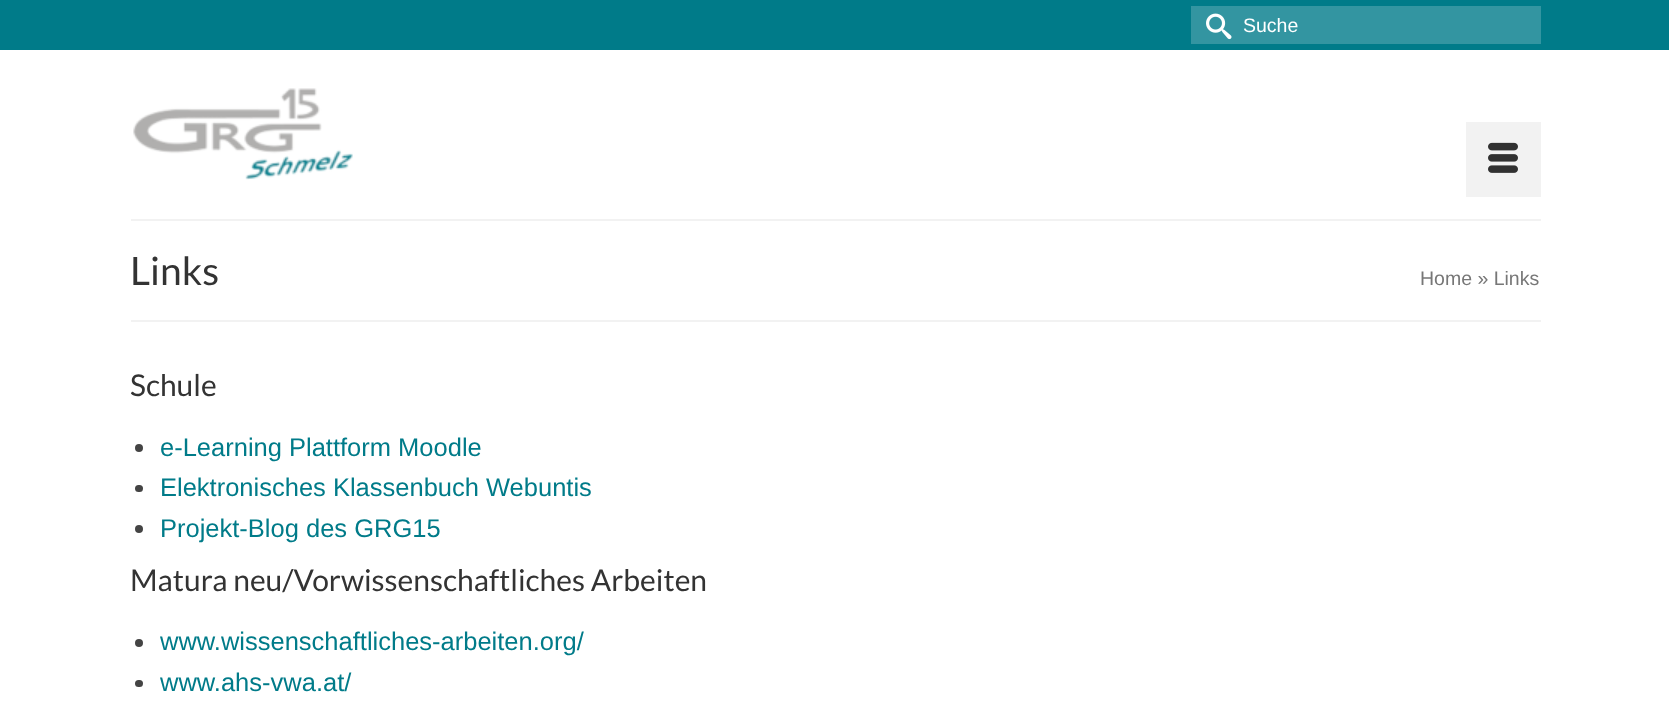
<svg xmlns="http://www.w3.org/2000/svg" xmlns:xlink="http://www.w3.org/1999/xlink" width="1669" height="714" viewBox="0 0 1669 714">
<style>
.cls-1{font:19.5px Liberation Sans;fill:#ffffff}
.cls-2{font:39px Lato;fill:#333333}
.cls-3{font:19.5px Liberation Sans;fill:#777777}
.cls-4{font:30px Lato;fill:#333333}
.cls-5{font:25.5px Liberation Sans;fill:#007b89}
</style>
<rect width="100%" height="100%" fill="#ffffff"/>
<rect fill="#007b89" x="0" y="0" width="1669" height="50"/>
<rect fill="#3395a1" x="1191" y="6" width="350" height="38"/>
<image xlink:href="image0.png" x="1206" y="13" width="26" height="27"/>
<image xlink:href="image1.png" x="133" y="88" width="220" height="92"/>
<rect fill="#f2f2f2" x="1466" y="122" width="75" height="75"/>
<image xlink:href="image2.png" x="1488" y="142" width="30" height="31"/>
<rect fill="#f2f2f2" x="131" y="219" width="1410" height="2"/>
<rect fill="#f2f2f2" x="131" y="320" width="1410" height="2"/>
<circle fill="#444444" cx="139" cy="448" r="4"/>
<rect fill="#444444" x="135" y="485" width="8" height="7" rx="3.5"/>
<circle fill="#444444" cx="139" cy="529" r="4"/>
<circle fill="#444444" cx="139" cy="643" r="4"/>
<rect fill="#444444" x="135" y="680" width="8" height="7" rx="3.5"/>
<text class="cls-1" x="1243" y="32">Suche</text>
<text class="cls-2" x="130" y="285">Links</text>
<text class="cls-3" x="1420" y="285">Home » Links</text>
<text class="cls-4" x="130" y="396">Schule</text>
<text class="cls-5"><tspan x="160" y="456">e-Learning Plattform Moodle</tspan><tspan x="160" y="496">Elektronisches Klassenbuch Webuntis</tspan><tspan x="160" y="537">Projekt-Blog des GRG15</tspan></text>
<text class="cls-4" x="130" y="591">Matura neu/Vorwissenschaftliches Arbeiten</text>
<text class="cls-5"><tspan x="160" y="650">www.wissenschaftliches-arbeiten.org/</tspan><tspan x="160" y="691">www.ahs-vwa.at/</tspan></text>
</svg>
